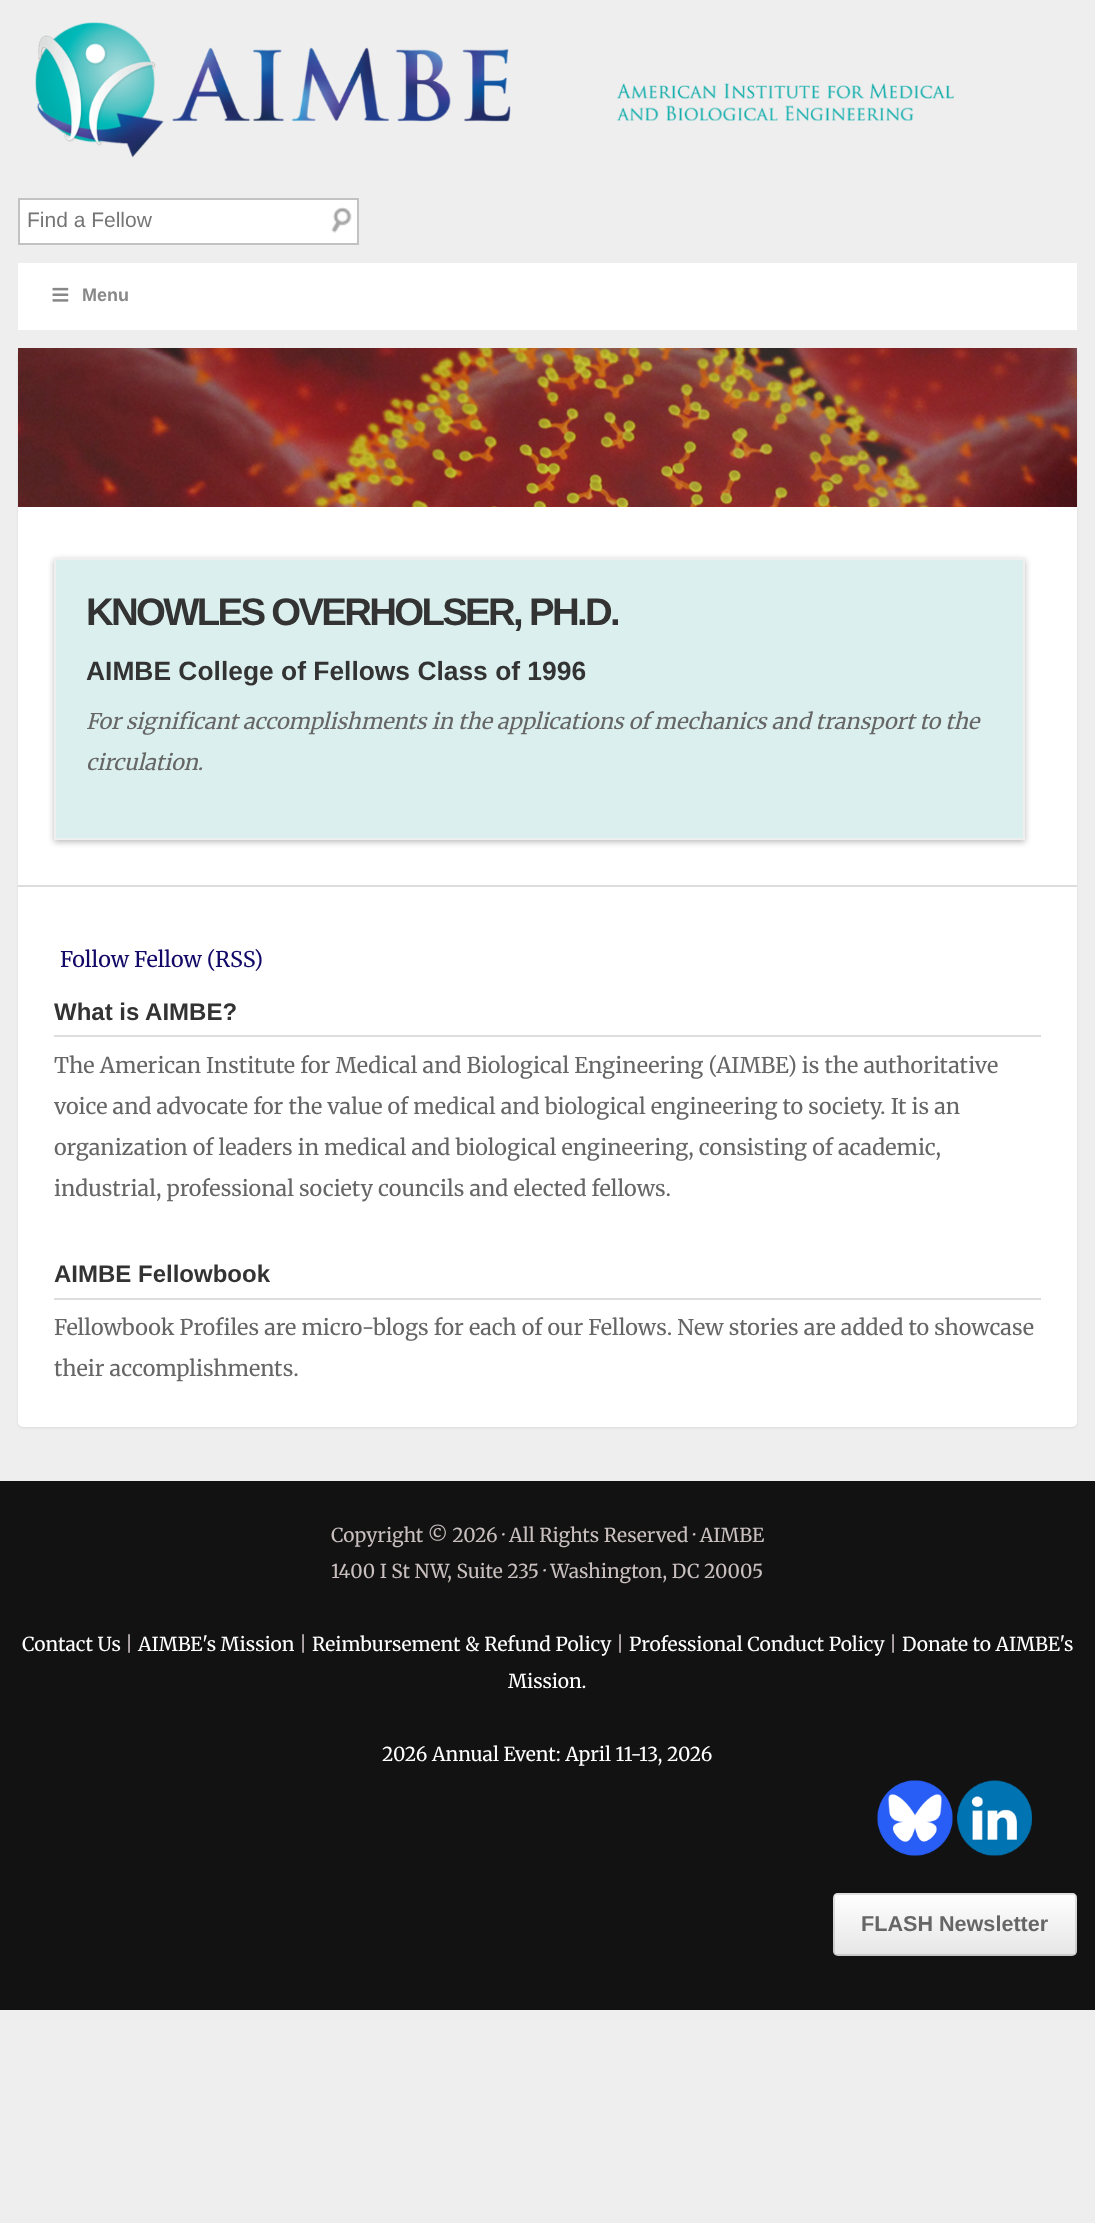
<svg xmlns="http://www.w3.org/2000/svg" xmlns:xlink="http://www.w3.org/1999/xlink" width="1095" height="2223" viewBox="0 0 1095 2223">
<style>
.cls-1{font:21px Liberation Sans;fill:#757575}
.cls-2{font:bold 18px Liberation Sans;fill:#888888}
.cls-3{font:bold 38.4px Liberation Sans;letter-spacing:-2.7px;fill:#333333}
.cls-4{font:bold 26.4px Liberation Sans;fill:#333333}
.cls-5{font:italic 21.6px Merriweather;fill:#666666}
.cls-6{font:21.6px Merriweather;fill:#110867}
.cls-7{font:bold 24px Liberation Sans;fill:#333333}
.cls-8{font:21.6px Merriweather;fill:#666666}
.cls-9{font:19.2px Merriweather;fill:#c9bfbf}
.cls-10{font:19.2px Merriweather;fill:#ffffff}
.cls-11{font:bold 21.6px Liberation Sans;fill:#666666}
</style>
<defs>
<linearGradient id="g1" gradientUnits="userSpaceOnUse" x1="955" y1="1893" x2="955" y2="1956"><stop offset="0" stop-color="#000000" stop-opacity="0"/><stop offset="1" stop-color="#000000" stop-opacity="0.1"/></linearGradient>
</defs>
<rect width="100%" height="100%" fill="#eeeeee"/>
<image xlink:href="image0.png" x="35" y="22" width="919" height="136"/>
<rect fill="#ffffff" stroke="#c2c2c2" stroke-width="2" x="19" y="199" width="339" height="45"/>
<image xlink:href="image1.png" x="331" y="207" width="21" height="26"/>
<rect fill="#ffffff" x="18" y="263" width="1059" height="67"/>
<image xlink:href="image2.png" x="52" y="287" width="17" height="15"/>
<rect fill="#000000" fill-opacity="0.08" filter="blur(1px)" x="18" y="350" width="1059" height="1078" rx="5"/>
<rect fill="#ffffff" x="18" y="348" width="1059" height="1079" rx="5"/>
<image xlink:href="image3.png" x="18" y="348" width="1059" height="159"/>
<rect fill="#000000" fill-opacity="0.27" filter="blur(3px)" x="54" y="560" width="971" height="282"/>
<rect fill="#dbf0ee" stroke="#efefef" stroke-width="2" x="55" y="559" width="969" height="280"/>
<rect fill="#dddddd" x="18" y="885" width="1059" height="2"/>
<rect fill="#dddddd" x="54" y="1035" width="987" height="2"/>
<rect fill="#dddddd" x="54" y="1298" width="987" height="2"/>
<rect fill="#121212" x="0" y="1481" width="1095" height="529"/>
<image xlink:href="image4.png" x="877" y="1780" width="76" height="76"/>
<image xlink:href="image5.png" x="957" y="1780" width="75" height="76"/>
<rect fill="#ffffff" x="833" y="1893" width="244" height="63" rx="5"/>
<rect fill="url(#g1)" x="833" y="1893" width="244" height="63" rx="5"/>
<path fill="#ffffff" fill-opacity="0.6" d="M837 1894H1072C1075 1894 1077 1897 1077 1899V1898C1077 1895 1075 1893 1072 1893H838C836 1893 834 1894 833 1896C834 1895 836 1894 837 1894Z"/>
<rect fill="none" stroke="#000000" stroke-opacity="0.12" stroke-width="2" x="834" y="1894" width="242" height="61" rx="2"/>
<text class="cls-1" x="27" y="227">Find a Fellow</text>
<text class="cls-2" x="82" y="301">Menu</text>
<text class="cls-3" x="86" y="625">KNOWLES OVERHOLSER, PH.D.</text>
<text class="cls-4" x="86" y="680">AIMBE College of Fellows Class of 1996</text>
<text class="cls-5"><tspan x="86" y="729">For significant accomplishments in the applications of mechanics and transport to the</tspan><tspan x="86" y="770">circulation.</tspan></text>
<text class="cls-6" x="60" y="967">Follow Fellow (RSS)</text>
<text class="cls-7" x="54" y="1020">What is AIMBE?</text>
<text class="cls-8"><tspan x="54" y="1073">The American Institute for Medical and Biological Engineering (AIMBE) is the authoritative</tspan><tspan x="54" y="1114">voice and advocate for the value of medical and biological engineering to society. It is an</tspan><tspan x="54" y="1155">organization of leaders in medical and biological engineering, consisting of academic,</tspan><tspan x="54" y="1196">industrial, professional society councils and elected fellows.</tspan></text>
<text class="cls-7" x="54" y="1282">AIMBE Fellowbook</text>
<text class="cls-8"><tspan x="54" y="1335">Fellowbook Profiles are micro-blogs for each of our Fellows. New stories are added to showcase</tspan><tspan x="54" y="1376">their accomplishments.</tspan></text>
<text class="cls-9"><tspan x="331" y="1542">Copyright © 2026 · All Rights Reserved · AIMBE</tspan><tspan x="331" y="1578">1400 I St NW, Suite 235 · Washington, DC 20005</tspan></text>
<text class="cls-10" x="22" y="1651">Contact Us</text>
<text class="cls-9" x="125" y="1651">|</text>
<text class="cls-10" x="138" y="1651">AIMBE's Mission</text>
<text class="cls-9" x="299" y="1651">|</text>
<text class="cls-10" x="312" y="1651">Reimbursement &amp; Refund Policy</text>
<text class="cls-9" x="616" y="1651">|</text>
<text class="cls-10" x="629" y="1651">Professional Conduct Policy</text>
<text class="cls-9" x="889" y="1651">|</text>
<text class="cls-10" x="902" y="1651">Donate to AIMBE's</text>
<text class="cls-10" x="508" y="1688">Mission.</text>
<text class="cls-10" x="382" y="1761">2026 Annual Event: April 11-13, 2026</text>
<text class="cls-11" x="861" y="1931">FLASH Newsletter</text>
</svg>
